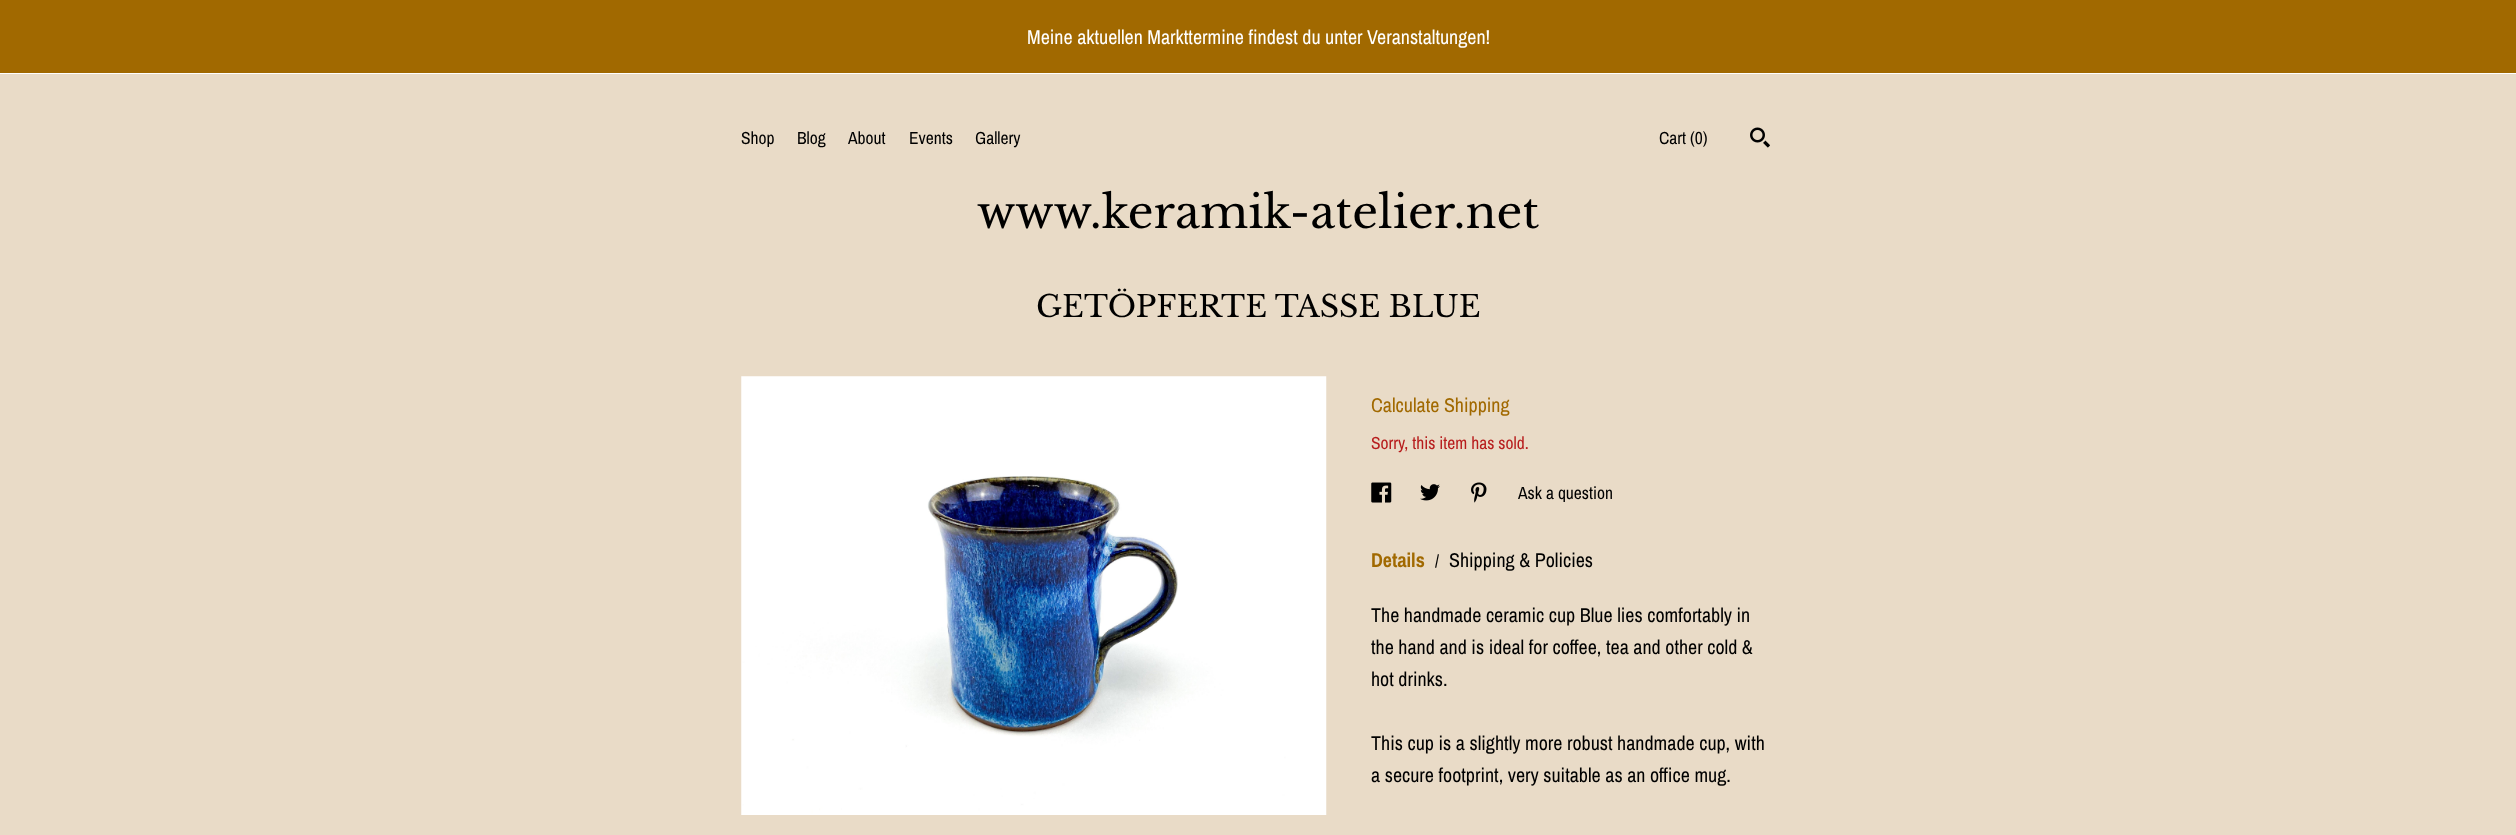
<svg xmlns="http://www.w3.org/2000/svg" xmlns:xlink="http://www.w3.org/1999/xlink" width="2516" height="835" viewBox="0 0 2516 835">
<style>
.cls-1{font:20px Archivo Narrow;fill:#ffffff}
.cls-2{font:17.5px Archivo Narrow;fill:#000000}
.cls-3{font:45px Libre Baskerville;fill:#000000}
.cls-4{font:30px Libre Baskerville;fill:#000000}
.cls-5{font:20px Archivo Narrow;fill:#a16900}
.cls-6{font:17.5px Archivo Narrow;fill:#b71c1c}
.cls-7{font:bold 20px Archivo Narrow;fill:#a16900}
.cls-8{font:20px Archivo Narrow;fill:#000000}
</style>
<rect width="100%" height="100%" fill="#e9dbc7"/>
<rect fill="#a16900" x="0" y="0" width="2516" height="73"/>
<rect fill="#ffffff" x="0" y="73" width="2516" height="1"/>
<image xlink:href="image0.png" x="1750" y="127" width="20" height="21"/>
<image xlink:href="image1.png" x="741" y="376" width="586" height="439"/>
<image xlink:href="image2.png" x="1371" y="482" width="21" height="21"/>
<image xlink:href="image3.png" x="1420" y="484" width="20" height="17"/>
<image xlink:href="image4.png" x="1471" y="482" width="16" height="21"/>
<text class="cls-1" x="1027" y="44">Meine aktuellen Markttermine findest du unter Veranstaltungen!</text>
<text class="cls-2" x="741" y="144">Shop</text>
<text class="cls-2" x="797" y="144">Blog</text>
<text class="cls-2" x="848" y="144">About</text>
<text class="cls-2" x="909" y="144">Events</text>
<text class="cls-2" x="975" y="144">Gallery</text>
<text class="cls-2" x="1659" y="144">Cart (0)</text>
<text class="cls-3" x="977" y="228">www.keramik-atelier.net</text>
<text class="cls-4" x="1036" y="317">GETÖPFERTE TASSE BLUE</text>
<text class="cls-5" x="1371" y="412">Calculate Shipping</text>
<text class="cls-6" x="1371" y="449">Sorry, this item has sold.</text>
<text class="cls-2" x="1518" y="499">Ask a question</text>
<text class="cls-7" x="1371" y="567">Details</text>
<text class="cls-2" x="1435" y="567">/</text>
<text class="cls-8" x="1449" y="567">Shipping &amp; Policies</text>
<text class="cls-8"><tspan x="1371" y="622">The handmade ceramic cup Blue lies comfortably in</tspan><tspan x="1371" y="654">the hand and is ideal for coffee, tea and other cold &amp;</tspan><tspan x="1371" y="686">hot drinks.</tspan></text>
<text class="cls-8"><tspan x="1371" y="750">This cup is a slightly more robust handmade cup, with</tspan><tspan x="1371" y="782">a secure footprint, very suitable as an office mug.</tspan></text>
</svg>
